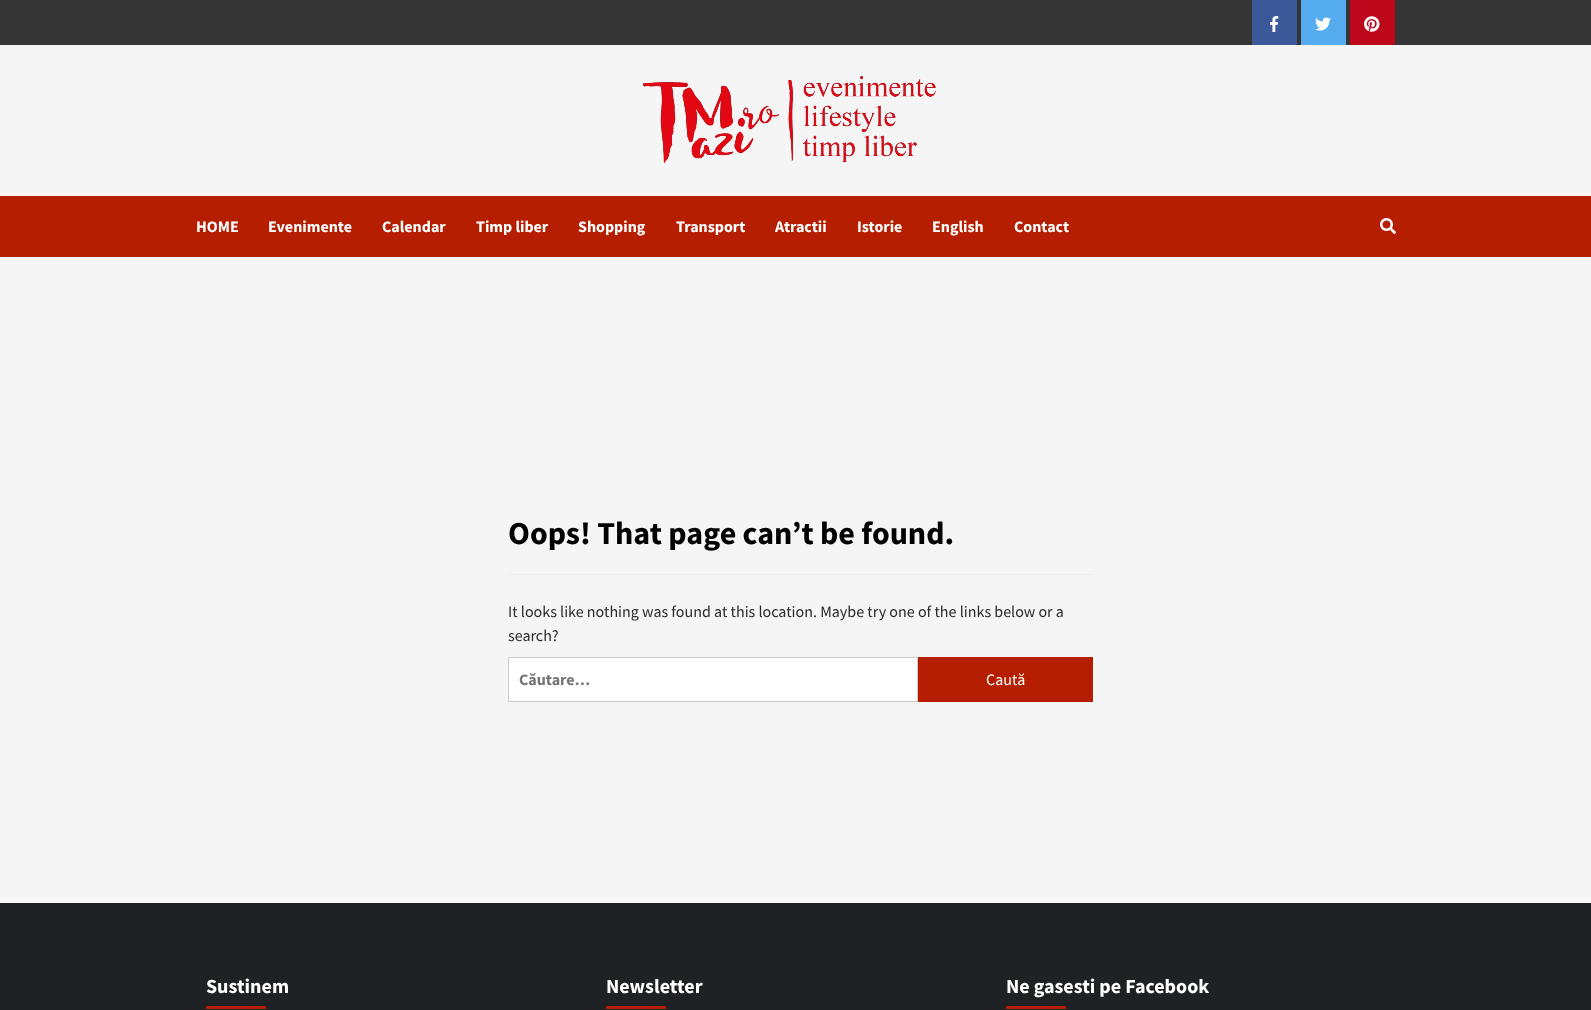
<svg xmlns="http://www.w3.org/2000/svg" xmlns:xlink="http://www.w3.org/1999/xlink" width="1591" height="1010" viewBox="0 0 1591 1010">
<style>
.cls-1{font:bold 16px Source Sans Pro;fill:#ffffff}
.cls-2{font:bold 32px Source Sans Pro;fill:#000000}
.cls-3{font:16px Source Sans Pro;fill:#2a2a2a}
.cls-4{font:bold 16px Source Sans Pro;fill:#757575}
.cls-5{font:16px Source Sans Pro;fill:#ffffff}
.cls-6{font:bold 20px Source Sans Pro;fill:#ffffff}
</style>
<rect width="100%" height="100%" fill="#f5f5f5"/>
<rect fill="#353535" x="0" y="0" width="1591" height="45"/>
<rect fill="#3b5999" x="1252" y="0" width="45" height="45"/>
<image xlink:href="image0.png" x="1270" y="16" width="9" height="16"/>
<rect fill="#55acee" x="1301" y="0" width="45" height="45"/>
<image xlink:href="image1.png" x="1315" y="17" width="16" height="14"/>
<rect fill="#bd081c" x="1350" y="0" width="45" height="45"/>
<image xlink:href="image2.png" x="1364" y="16" width="16" height="16"/>
<image xlink:href="image3.png" x="643" y="75" width="293" height="88"/>
<rect fill="#b51e00" x="0" y="196" width="1591" height="61"/>
<image xlink:href="image4.png" x="1380" y="218" width="16" height="16"/>
<rect fill="#eeeeee" x="508" y="574" width="585" height="1"/>
<rect fill="#ffffff" stroke="#cccccc" x="508.5" y="657.5" width="409" height="44"/>
<rect fill="#b51e00" x="918" y="657" width="175" height="45"/>
<rect fill="#1f2125" x="0" y="903" width="1591" height="107"/>
<rect fill="#b51e00" x="206" y="1006" width="60" height="3"/>
<rect fill="#b51e00" x="606" y="1006" width="60" height="3"/>
<rect fill="#b51e00" x="1006" y="1006" width="60" height="3"/>
<text class="cls-1" x="196" y="232">HOME</text>
<text class="cls-1" x="268" y="232">Evenimente</text>
<text class="cls-1" x="382" y="232">Calendar</text>
<text class="cls-1" x="476" y="232">Timp liber</text>
<text class="cls-1" x="578" y="232">Shopping</text>
<text class="cls-1" x="676" y="232">Transport</text>
<text class="cls-1" x="775" y="232">Atractii</text>
<text class="cls-1" x="857" y="232">Istorie</text>
<text class="cls-1" x="932" y="232">English</text>
<text class="cls-1" x="1014" y="232">Contact</text>
<text class="cls-2" x="508" y="544">Oops! That page can’t be found.</text>
<text class="cls-3"><tspan x="508" y="617">It looks like nothing was found at this location. Maybe try one of the links below or a</tspan><tspan x="508" y="641">search?</tspan></text>
<text class="cls-4" x="519" y="685">Căutare…</text>
<text class="cls-5" x="986" y="685">Caută</text>
<text class="cls-6" x="206" y="993">Sustinem</text>
<text class="cls-6" x="606" y="993">Newsletter</text>
<text class="cls-6" x="1006" y="993">Ne gasesti pe Facebook</text>
</svg>
